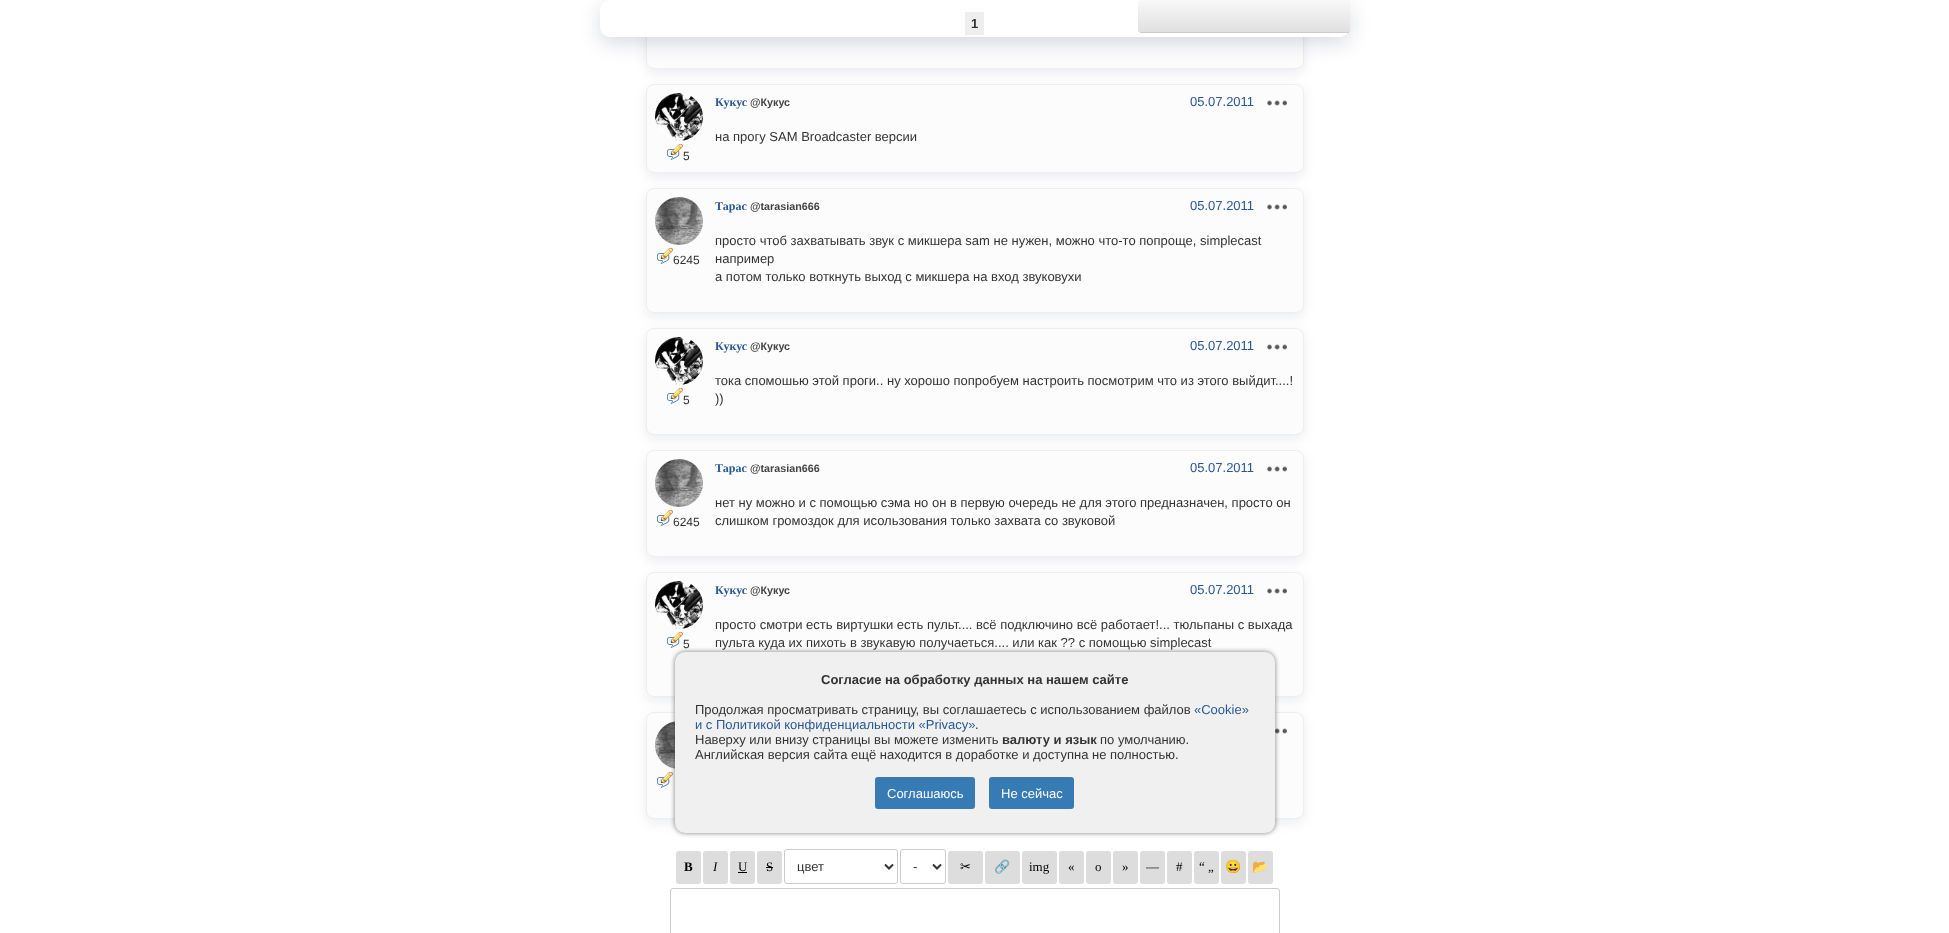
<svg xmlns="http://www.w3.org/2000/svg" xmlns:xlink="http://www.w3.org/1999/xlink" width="1949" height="933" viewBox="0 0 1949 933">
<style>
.cls-1{font:bold 13px Liberation Sans;fill:#333333}
.cls-2{font:bold 12px Liberation Serif;fill:#295794}
.cls-3{font:bold 10.75px Liberation Sans;fill:#444444}
.cls-4{font:13px Liberation Sans;fill:#295794}
.cls-5{font:13px Liberation Sans;fill:#333333}
.cls-6{font:12px Liberation Sans;fill:#333333}
.cls-7{font:bold 13px Liberation Serif;fill:#000000}
.cls-8{font:italic 13px Liberation Serif;fill:#000000}
.cls-9{font:13px Liberation Serif;fill:#000000}
.cls-10{font:13px DejaVu Sans;fill:#000000}
.cls-11{font:13px Noto Color Emoji;fill:#000000}
.cls-12{font:13px Liberation Sans;fill:#ffffff}
</style>
<defs>
<clipPath id="clip1"><rect x="1138" y="0" width="212" height="33" rx="3"/></clipPath>
<linearGradient id="g1" gradientUnits="userSpaceOnUse" x1="1244" y1="0" x2="1244" y2="32"><stop offset="0" stop-color="#f8f8f8"/><stop offset="1" stop-color="#e0e0e0"/></linearGradient>
<linearGradient id="g2" gradientUnits="userSpaceOnUse" x1="1244" y1="32" x2="1244" y2="64"><stop offset="0" stop-color="#f8f8f8"/><stop offset="1" stop-color="#e0e0e0"/></linearGradient>
</defs>
<rect width="100%" height="100%" fill="#ffffff"/>
<rect fill="#001040" fill-opacity="0.08" filter="blur(6px)" x="646" y="-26" width="658" height="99" rx="8"/>
<rect fill="#fcfcfc" stroke="#eeeeee" x="646.5" y="-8.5" width="657" height="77" rx="7.5"/>
<rect fill="#001040" fill-opacity="0.15" filter="blur(10px)" x="600" y="6" width="750" height="37" rx="10"/>
<rect fill="#ffffff" x="600" y="0" width="750" height="37" rx="10"/>
<g clip-path="url(#clip1)">
<path fill="url(#g1)" d="M1141 0H1347C1348.5 0 1350 1.5 1350 3V32H1138V3C1138 1.5 1139.5 0 1141 0Z"/>
<rect fill="url(#g2)" x="1138" y="32" width="212" height="1"/>
</g>
<rect fill="#cccccc" x="1140" y="32" width="209" height="1"/>
<rect fill="#eeeeee" x="965" y="12" width="19" height="23"/>
<rect fill="#001040" fill-opacity="0.08" filter="blur(6px)" x="646" y="88" width="658" height="89" rx="8"/>
<rect fill="#fcfcfc" stroke="#eeeeee" x="646.5" y="84.5" width="657" height="88" rx="7.5"/>
<image xlink:href="image0.png" x="1267" y="100" width="20" height="6"/>
<image xlink:href="image1.png" x="655" y="93" width="48" height="48"/>
<image xlink:href="image2.png" x="667" y="144" width="16" height="16"/>
<rect fill="#001040" fill-opacity="0.08" filter="blur(6px)" x="646" y="192" width="658" height="125" rx="8"/>
<rect fill="#fcfcfc" stroke="#eeeeee" x="646.5" y="188.5" width="657" height="124" rx="7.5"/>
<image xlink:href="image3.png" x="655" y="197" width="48" height="48"/>
<image xlink:href="image2.png" x="657" y="248" width="16" height="16"/>
<image xlink:href="image0.png" x="1267" y="204" width="20" height="6"/>
<rect fill="#001040" fill-opacity="0.08" filter="blur(6px)" x="646" y="332" width="658" height="107" rx="8"/>
<rect fill="#fcfcfc" stroke="#eeeeee" x="646.5" y="328.5" width="657" height="106" rx="7.5"/>
<image xlink:href="image1.png" x="655" y="337" width="48" height="48"/>
<image xlink:href="image2.png" x="667" y="388" width="16" height="16"/>
<image xlink:href="image0.png" x="1267" y="344" width="20" height="6"/>
<rect fill="#001040" fill-opacity="0.08" filter="blur(6px)" x="646" y="454" width="658" height="107" rx="8"/>
<rect fill="#fcfcfc" stroke="#eeeeee" x="646.5" y="450.5" width="657" height="106" rx="7.5"/>
<image xlink:href="image3.png" x="655" y="459" width="48" height="48"/>
<image xlink:href="image2.png" x="657" y="510" width="16" height="16"/>
<image xlink:href="image0.png" x="1267" y="466" width="20" height="6"/>
<rect fill="#001040" fill-opacity="0.08" filter="blur(6px)" x="646" y="576" width="658" height="125" rx="8"/>
<rect fill="#fcfcfc" stroke="#eeeeee" x="646.5" y="572.5" width="657" height="124" rx="7.5"/>
<image xlink:href="image1.png" x="655" y="581" width="48" height="48"/>
<image xlink:href="image2.png" x="667" y="632" width="16" height="16"/>
<image xlink:href="image0.png" x="1267" y="588" width="20" height="6"/>
<rect fill="#001040" fill-opacity="0.08" filter="blur(6px)" x="646" y="716" width="658" height="107" rx="8"/>
<rect fill="#fcfcfc" stroke="#eeeeee" x="646.5" y="712.5" width="657" height="106" rx="7.5"/>
<image xlink:href="image4.png" x="655" y="721" width="20" height="48"/>
<image xlink:href="image2.png" x="657" y="772" width="16" height="16"/>
<image xlink:href="image5.png" x="1275" y="728" width="12" height="6"/>
<rect fill="#dddddd" x="676" y="851" width="25" height="33" rx="3"/>
<rect fill="#dddddd" x="703" y="851" width="25" height="33" rx="3"/>
<rect fill="#dddddd" x="730" y="851" width="25" height="33" rx="3"/>
<rect fill="#000000" x="738" y="872" width="9" height="1"/>
<rect fill="#dddddd" x="757" y="851" width="25" height="33" rx="3"/>
<rect fill="#000000" x="766" y="867" width="7" height="1"/>
<rect fill="none" stroke="#cccccc" x="784.5" y="849.5" width="113" height="34" rx="2.5"/>
<path fill="none" stroke="#333333" stroke-width="2" d="M885 864.5L889 868.5L893 864.5"/>
<rect fill="none" stroke="#cccccc" x="900.5" y="849.5" width="45" height="34" rx="2.5"/>
<path fill="none" stroke="#333333" stroke-width="2" d="M933 864.5L937 868.5L941 864.5"/>
<rect fill="#dddddd" x="948" y="851" width="35" height="33" rx="3"/>
<rect fill="#dddddd" x="985" y="851" width="35" height="33" rx="3"/>
<rect fill="#dddddd" x="1022" y="851" width="35" height="33" rx="3"/>
<rect fill="#dddddd" x="1059" y="851" width="25" height="33" rx="3"/>
<rect fill="#dddddd" x="1086" y="851" width="25" height="33" rx="3"/>
<rect fill="#dddddd" x="1113" y="851" width="25" height="33" rx="3"/>
<rect fill="#dddddd" x="1140" y="851" width="25" height="33" rx="3"/>
<rect fill="#dddddd" x="1167" y="851" width="25" height="33" rx="3"/>
<rect fill="#dddddd" x="1194" y="851" width="25" height="33" rx="3"/>
<rect fill="#dddddd" x="1221" y="851" width="25" height="33" rx="3"/>
<rect fill="#dddddd" x="1248" y="851" width="25" height="33" rx="3"/>
<rect fill="none" stroke="#cccccc" x="670.5" y="888.5" width="609" height="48" rx="2.5"/>
<rect fill="#000000" fill-opacity="0.5" filter="blur(2.5px)" x="675" y="652" width="600" height="181" rx="10"/>
<rect fill="#f0f0f0" x="675" y="652" width="600" height="181" rx="10"/>
<rect fill="#377bb5" x="875" y="777" width="100" height="32" rx="3"/>
<rect fill="#377bb5" x="989" y="777" width="85" height="32" rx="3"/>
<text class="cls-1" x="971" y="28">1</text>
<text class="cls-2" x="715" y="106">Кукус</text>
<text class="cls-3" x="750" y="106">@Кукус</text>
<text class="cls-4" x="1190" y="106">05.07.2011</text>
<text class="cls-5" x="715" y="141">на прогу SAM Broadcaster версии</text>
<text class="cls-6" x="683" y="160">5</text>
<text class="cls-6" x="673" y="264">6245</text>
<text class="cls-2" x="715" y="210">Тарас</text>
<text class="cls-3" x="750" y="210">@tarasian666</text>
<text class="cls-4" x="1190" y="210">05.07.2011</text>
<text class="cls-5"><tspan x="715" y="245">просто чтоб захватывать звук с микшера sam не нужен, можно что-то попроще, simplecast</tspan><tspan x="715" y="263">например</tspan><tspan x="715" y="281">а потом только воткнуть выход с микшера на вход звуковухи</tspan></text>
<text class="cls-6" x="683" y="404">5</text>
<text class="cls-2" x="715" y="350">Кукус</text>
<text class="cls-3" x="750" y="350">@Кукус</text>
<text class="cls-4" x="1190" y="350">05.07.2011</text>
<text class="cls-5"><tspan x="715" y="385">тока спомошью этой проги.. ну хорошо попробуем настроить посмотрим что из этого выйдит....!</tspan><tspan x="715" y="403">))</tspan></text>
<text class="cls-6" x="673" y="526">6245</text>
<text class="cls-2" x="715" y="472">Тарас</text>
<text class="cls-3" x="750" y="472">@tarasian666</text>
<text class="cls-4" x="1190" y="472">05.07.2011</text>
<text class="cls-5"><tspan x="715" y="507">нет ну можно и с помощью сэма но он в первую очередь не для этого предназначен, просто он</tspan><tspan x="715" y="525">слишком громоздок для исользования только захвата со звуковой</tspan></text>
<text class="cls-6" x="683" y="648">5</text>
<text class="cls-2" x="715" y="594">Кукус</text>
<text class="cls-3" x="750" y="594">@Кукус</text>
<text class="cls-4" x="1190" y="594">05.07.2011</text>
<text class="cls-5"><tspan x="715" y="629">просто смотри есть виртушки есть пульт.... всё подключино всё работает!... тюльпаны с выхада</tspan><tspan x="715" y="647">пульта куда их пихоть в звукавую получаеться.... или как ?? с помощью simplecast</tspan></text>
<text class="cls-7" x="684" y="871">B</text>
<text class="cls-8" x="713" y="871">I</text>
<text class="cls-9" x="738" y="871">U</text>
<text class="cls-9" x="766" y="871">S</text>
<text class="cls-5" x="797" y="871">цвет</text>
<text class="cls-5" x="913" y="871">-</text>
<text class="cls-10" x="960" y="871">✂</text>
<text class="cls-11" x="994" y="871">🔗</text>
<text class="cls-9" x="1029" y="871">img</text>
<text class="cls-9" x="1068" y="871">«</text>
<text class="cls-9" x="1095" y="871">o</text>
<text class="cls-9" x="1122" y="871">»</text>
<text class="cls-9" x="1146" y="871">—</text>
<text class="cls-9" x="1176" y="871">#</text>
<text class="cls-9" x="1199" y="871">“ „</text>
<text class="cls-11" x="1225" y="871">😀</text>
<text class="cls-11" x="1252" y="871">📂</text>
<text class="cls-1" x="821" y="684">Согласие на обработку данных на нашем сайте</text>
<text class="cls-5" x="695" y="714">Продолжая просматривать страницу, вы соглашаетесь с использованием файлов</text>
<text class="cls-4" x="1194" y="714">«Cookie»</text>
<text class="cls-4" x="695" y="729">и с Политикой конфиденциальности «Privacy»</text>
<text class="cls-5" x="975" y="729">.</text>
<text class="cls-5" x="695" y="744">Наверху или внизу страницы вы можете изменить</text>
<text class="cls-1" x="1002" y="744">валюту и язык</text>
<text class="cls-5" x="1100" y="744">по умолчанию.</text>
<text class="cls-5" x="695" y="759">Английская версия сайта ещё находится в доработке и доступна не полностью.</text>
<text class="cls-12" x="887" y="798">Соглашаюсь</text>
<text class="cls-12" x="1001" y="798">Не сейчас</text>
</svg>
